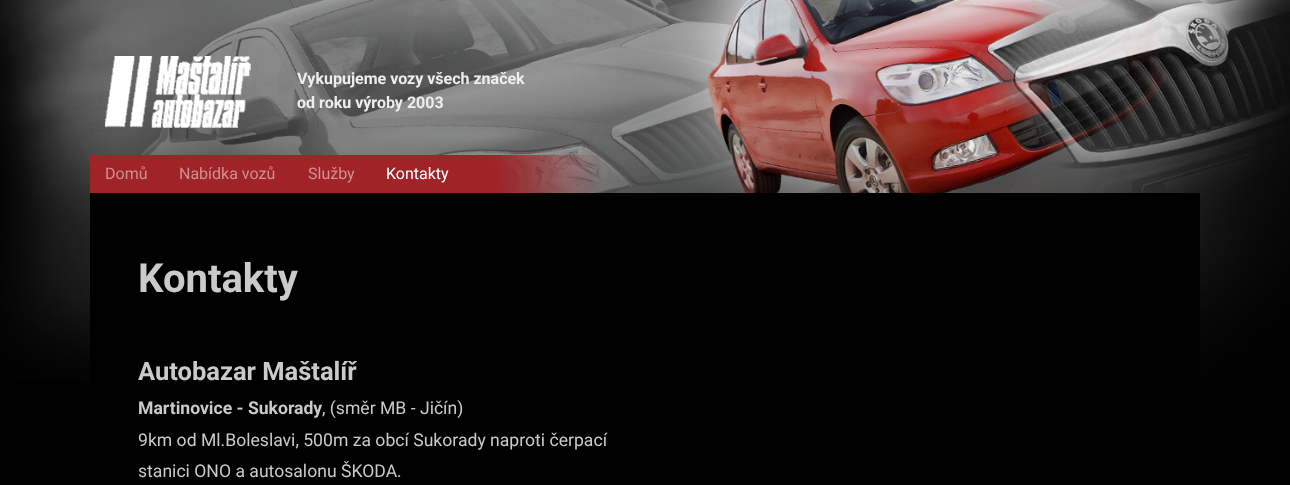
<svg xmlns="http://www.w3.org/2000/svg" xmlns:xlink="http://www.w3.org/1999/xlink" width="1290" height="485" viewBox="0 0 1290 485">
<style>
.cls-1{font:bold 16px Roboto;fill:#eeeeee}
.cls-2{font:16px Roboto;fill:#d09193}
.cls-3{font:16px Roboto;fill:#ffffff}
.cls-4{font:bold 40px Roboto;fill:#cacaca}
.cls-5{font:bold 25.5px Roboto;fill:#cacaca}
.cls-6{font:bold 17.6px Roboto;fill:#cacaca}
.cls-7{font:17.6px Roboto;fill:#cacaca}
</style>
<rect width="100%" height="100%" fill="#000000"/>
<image xlink:href="image0.png" x="0" y="0" width="1290" height="438"/>
<image xlink:href="image1.png" x="105" y="56" width="146" height="72"/>
<rect fill="#a02327" x="90" y="155" width="264" height="38"/>
<rect fill="#000000" x="90" y="193" width="1110" height="245"/>
<text class="cls-1"><tspan x="297" y="84">Vykupujeme vozy všech značek</tspan><tspan x="297" y="108">od roku výroby 2003</tspan></text>
<text class="cls-2" x="105" y="179">Domů</text>
<text class="cls-2" x="179" y="179">Nabídka vozů</text>
<text class="cls-2" x="308" y="179">Služby</text>
<rect fill="#a02327" x="354" y="155" width="95" height="38"/>
<text class="cls-3" x="386" y="179">Kontakty</text>
<text class="cls-4" x="138" y="292">Kontakty</text>
<text class="cls-5" x="138" y="380">Autobazar Maštalíř</text>
<text class="cls-6" x="138" y="414">Martinovice - Sukorady</text>
<text class="cls-7" x="322" y="414">, (směr MB - Jičín)</text>
<text class="cls-7"><tspan x="138" y="446">9km od Ml.Boleslavi, 500m za obcí Sukorady naproti čerpací</tspan><tspan x="138" y="477">stanici ONO a autosalonu ŠKODA.</tspan></text>
</svg>
